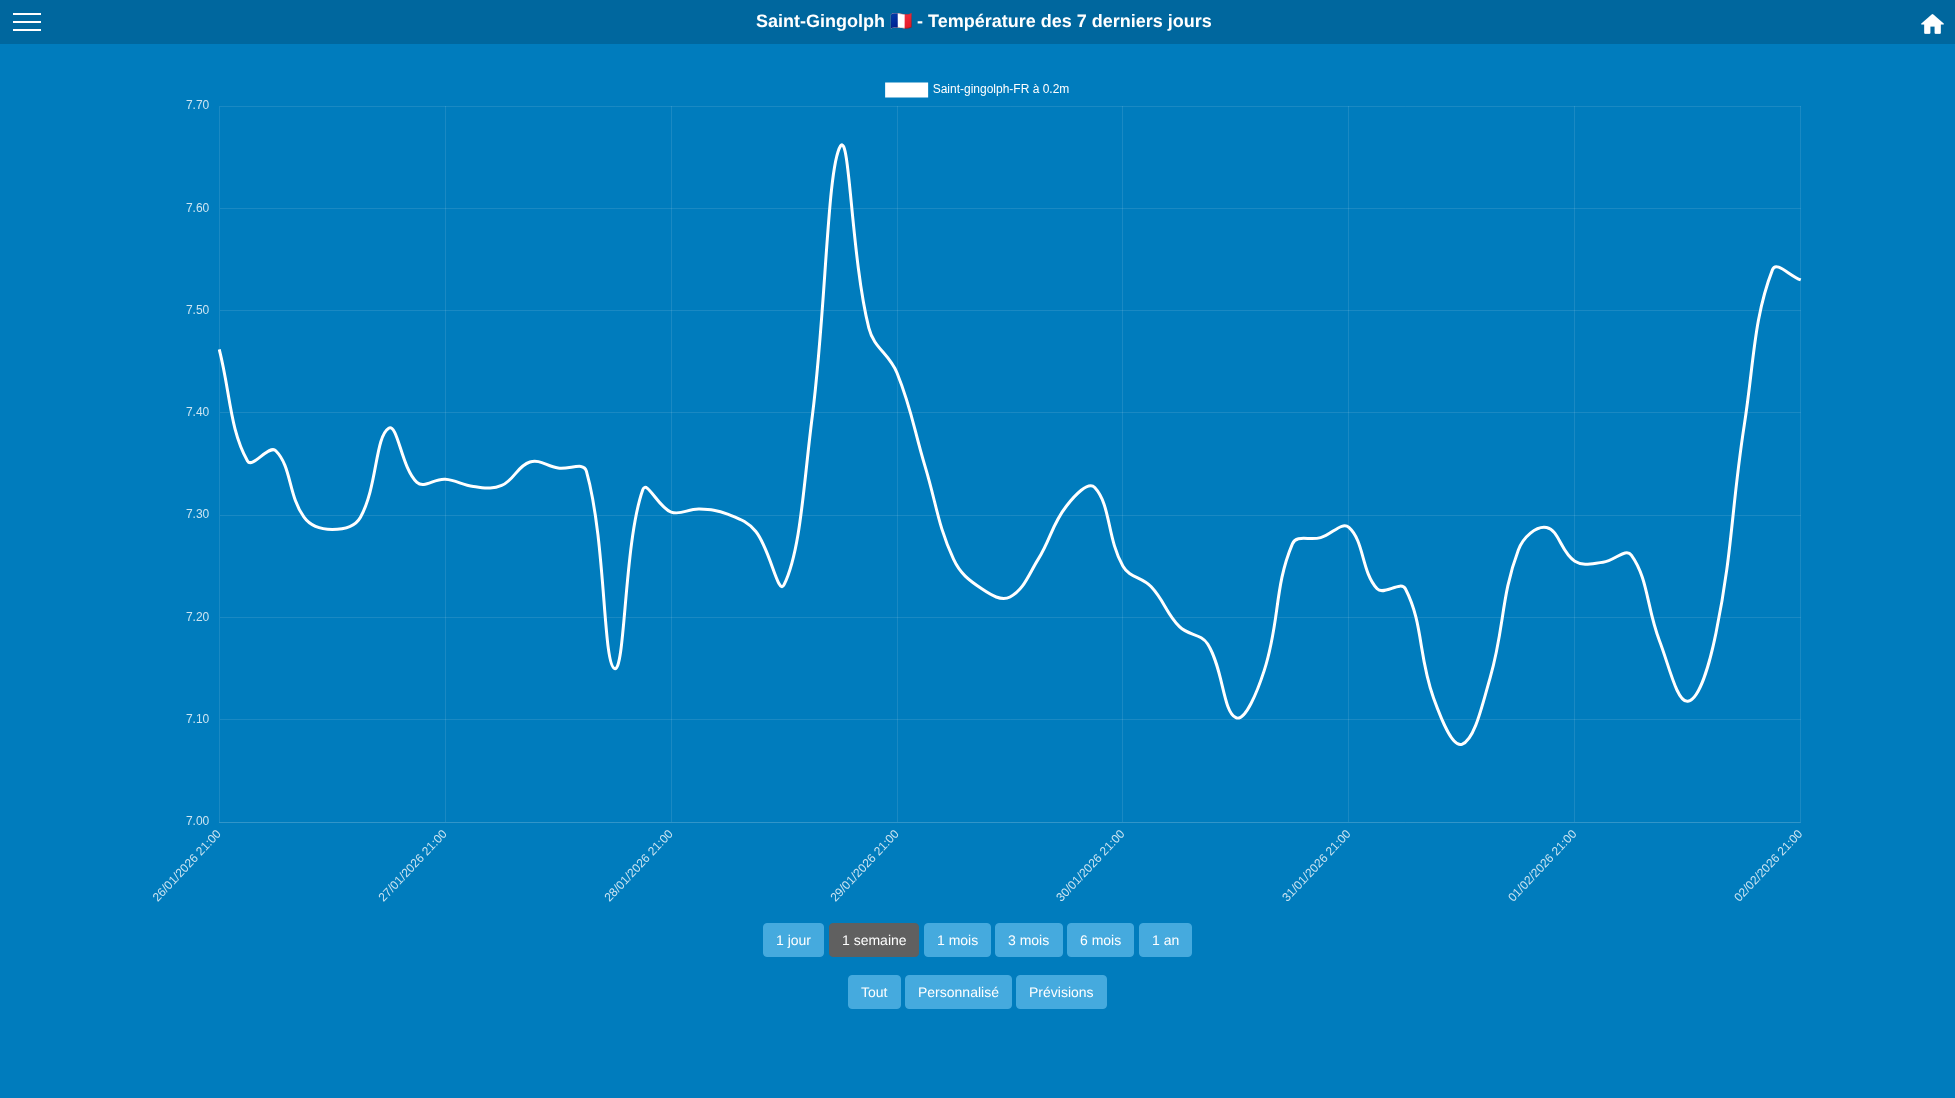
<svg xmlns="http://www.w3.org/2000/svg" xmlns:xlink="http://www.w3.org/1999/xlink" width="1955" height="1098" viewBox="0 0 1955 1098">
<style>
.cls-1{font:bold 18px Liberation Sans;fill:#ffffff}
.cls-2{font:bold 18px Noto Color Emoji;fill:#ffffff}
.cls-3{font:14px Liberation Sans;fill:#ffffff}
</style>
<rect width="100%" height="100%" fill="#007cbd"/>
<rect fill="#00679e" x="0" y="0" width="1955" height="44"/>
<rect fill="#ffffff" x="13" y="13" width="28" height="2"/>
<rect fill="#ffffff" x="13" y="21" width="28" height="2"/>
<rect fill="#ffffff" x="13" y="29" width="28" height="2"/>
<image xlink:href="image0.png" x="1921" y="14" width="23" height="20"/>
<image xlink:href="image1.png" x="153" y="82" width="1649" height="820"/>
<rect fill="#45aade" stroke="#45aade" x="763.5" y="923.5" width="60" height="33" rx="3.5"/>
<rect fill="#606060" stroke="#606060" x="829.5" y="923.5" width="89" height="33" rx="3.5"/>
<rect fill="#45aade" stroke="#45aade" x="924.5" y="923.5" width="66" height="33" rx="3.5"/>
<rect fill="#45aade" stroke="#45aade" x="995.5" y="923.5" width="67" height="33" rx="3.5"/>
<rect fill="#45aade" stroke="#45aade" x="1067.5" y="923.5" width="66" height="33" rx="3.5"/>
<rect fill="#45aade" stroke="#45aade" x="1139.5" y="923.5" width="52" height="33" rx="3.5"/>
<rect fill="#45aade" stroke="#45aade" x="848.5" y="975.5" width="52" height="33" rx="3.5"/>
<rect fill="#45aade" stroke="#45aade" x="905.5" y="975.5" width="106" height="33" rx="3.5"/>
<rect fill="#45aade" stroke="#45aade" x="1016.5" y="975.5" width="90" height="33" rx="3.5"/>
<text class="cls-1" x="756" y="27">Saint-Gingolph</text>
<text class="cls-2" x="890" y="27">🇫🇷</text>
<text class="cls-1" x="917" y="27">- Température des 7 derniers jours</text>
<text class="cls-3" x="776" y="945">1 jour</text>
<text class="cls-3" x="842" y="945">1 semaine</text>
<text class="cls-3" x="937" y="945">1 mois</text>
<text class="cls-3" x="1008" y="945">3 mois</text>
<text class="cls-3" x="1080" y="945">6 mois</text>
<text class="cls-3" x="1152" y="945">1 an</text>
<text class="cls-3" x="861" y="997">Tout</text>
<text class="cls-3" x="918" y="997">Personnalisé</text>
<text class="cls-3" x="1029" y="997">Prévisions</text>
</svg>
